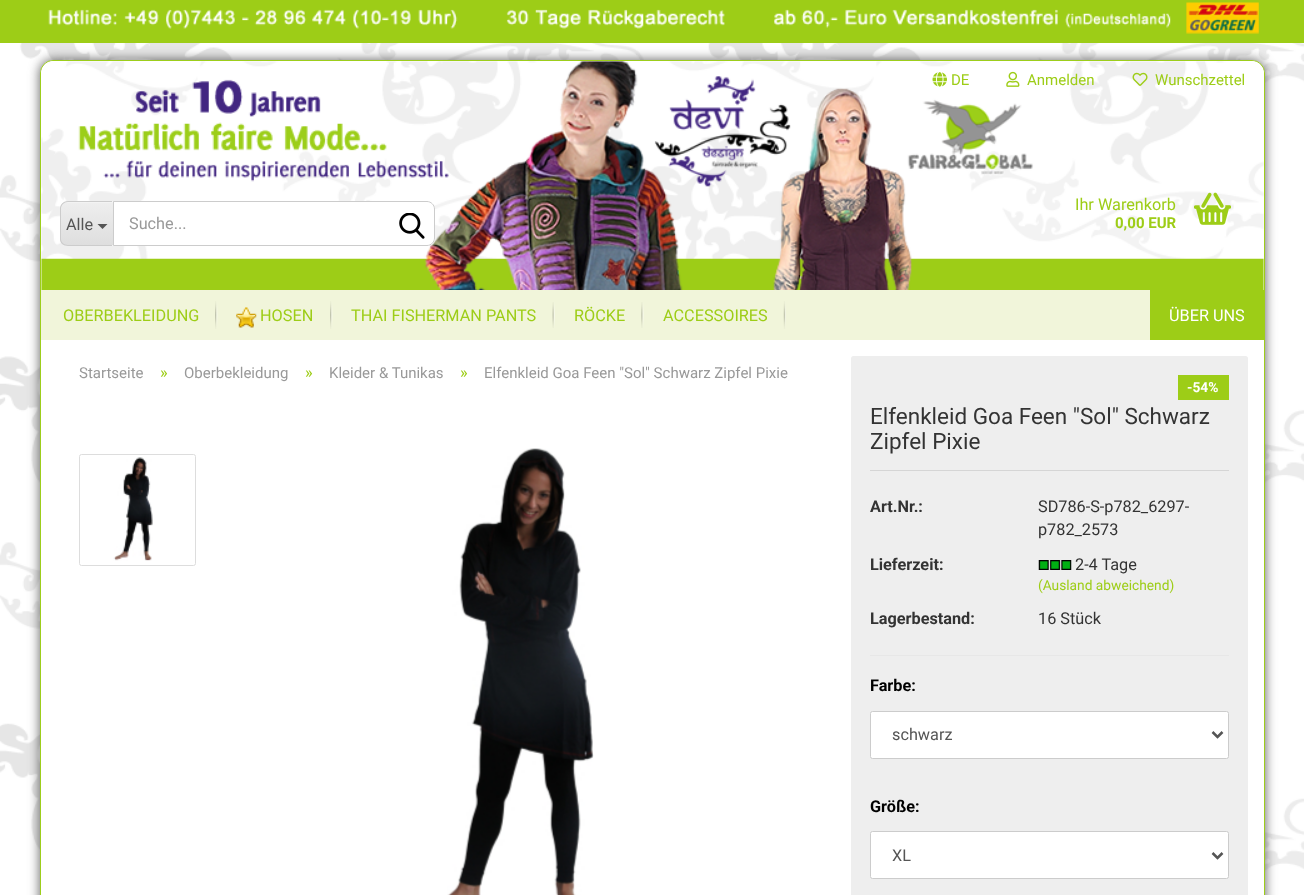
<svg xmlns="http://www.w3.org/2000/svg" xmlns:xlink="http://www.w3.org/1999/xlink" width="1304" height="895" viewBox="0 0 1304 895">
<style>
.cls-1{font:15px Roboto;fill:#9dcd17}
.cls-2{font:16.25px Roboto;fill:#555555}
.cls-3{font:16.25px Roboto;fill:#999999}
.cls-4{font:16.25px Roboto;fill:#9dcd17}
.cls-5{font:bold 15px Roboto;fill:#9dcd17}
.cls-6{font:16.25px Roboto;fill:#ffffff}
.cls-7{font:15px Roboto;fill:#999999}
.cls-8{font:bold 13.75px Roboto;fill:#ffffff}
.cls-9{font:22.5px Roboto;fill:#333333}
.cls-10{font:bold 16.25px Roboto;fill:#333333}
.cls-11{font:16.25px Roboto;fill:#333333}
.cls-12{font:13.75px Roboto;fill:#9dcd17}
.cls-13{font:bold 16.25px Roboto;fill:#000000}
</style>
<defs>
<clipPath id="clip1"><path d="M68 201H113V246H68C63.5 246 60 242.5 60 238V209C60 204.5 63.5 201 68 201Z"/></clipPath>
<linearGradient id="g1" gradientUnits="userSpaceOnUse" x1="87" y1="203" x2="87" y2="245"><stop offset="0" stop-color="#eeeeee"/><stop offset="1" stop-color="#dedede"/></linearGradient>
</defs>
<rect width="100%" height="100%" fill="#ffffff"/>
<image xlink:href="image0.png" x="0" y="43" width="1304" height="852"/>
<rect fill="#9dcd17" x="0" y="0" width="1304" height="43"/>
<image xlink:href="image1.png" x="48" y="2" width="1211" height="32"/>
<rect fill="#323232" fill-opacity="0.8" filter="blur(6px)" x="40" y="60" width="1225" height="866" rx="13"/>
<rect fill="#ffffff" stroke="#9dce1b" x="40.5" y="60.5" width="1224" height="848" rx="12.5"/>
<path fill="#ffffff" d="M54 61H1251C1258 61 1264 67 1264 74V333.5C1264 335 1263 336 1261.5 336H43.5C42 336 41 335 41 333.5V74C41 67 47 61 54 61Z"/>
<image xlink:href="image2.png" x="41" y="61" width="1223" height="229"/>
<image xlink:href="image3.png" x="932" y="72" width="15" height="15"/>
<image xlink:href="image4.png" x="1006" y="71" width="14" height="16"/>
<image xlink:href="image5.png" x="1132" y="72" width="16" height="14"/>
<path fill="#f3f3f3" d="M68 201H113V246H68C63.5 246 60 242.5 60 238V209C60 204.5 63.5 201 68 201Z"/>
<g clip-path="url(#clip1)">
<rect fill="url(#g1)" x="60" y="203" width="53" height="42"/>
</g>
<path fill="#cccccc" fill-rule="evenodd" d="M68 201H112V246H68C63 246 60 243 60 239V209C60 205 63 201 68 201ZM68 202H112V245H68C64 245 61 242 61 239V209C61 205 64 202 68 202Z"/>
<path fill="#555555" d="M97.5 224H107.5L102.5 229Z"/>
<path fill="#ffffff" stroke="#cccccc" d="M113.5 201.5H427C431 201.5 434.5 205 434.5 209V238C434.5 242 431 245.5 427 245.5H113.5Z"/>
<image xlink:href="image6.png" x="399" y="213" width="26" height="26"/>
<image xlink:href="image7.png" x="1194" y="192" width="37" height="33"/>
<rect fill="#f1f5da" x="41" y="290" width="1109" height="50"/>
<image xlink:href="image8.png" x="215" y="301" width="3" height="28"/>
<image xlink:href="image8.png" x="330" y="301" width="3" height="28"/>
<image xlink:href="image9.png" x="236" y="307" width="21" height="21"/>
<image xlink:href="image10.png" x="552" y="302" width="3" height="26"/>
<image xlink:href="image11.png" x="641" y="302" width="3" height="26"/>
<image xlink:href="image12.png" x="783" y="301" width="3" height="28"/>
<rect fill="#9dcd17" x="1150" y="290" width="114" height="50"/>
<rect fill="none" stroke="#dddddd" x="79.5" y="454.5" width="116" height="111" rx="2"/>
<image xlink:href="image13.png" x="113" y="457" width="40" height="104"/>
<image xlink:href="image14.png" x="447" y="448" width="147" height="447"/>
<rect fill="#eeeeee" x="851" y="356" width="397" height="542" rx="2.5"/>
<rect fill="#9dcd17" x="1178" y="375" width="51" height="25"/>
<rect fill="#d5d5d5" x="870" y="470" width="359" height="1"/>
<rect fill="#e7e7e7" x="870" y="655" width="359" height="1"/>
<image xlink:href="image15.png" x="1038" y="560" width="34" height="10"/>
<rect fill="#ffffff" stroke="#cccccc" x="870.5" y="711.5" width="358" height="47" rx="2"/>
<path fill="none" stroke="#555555" stroke-width="2.5" d="M1212.5 732L1217.5 737L1222.5 732"/>
<rect fill="#ffffff" stroke="#cccccc" x="870.5" y="831.5" width="358" height="47" rx="2"/>
<path fill="none" stroke="#555555" stroke-width="2.5" d="M1212.5 853L1217.5 858L1222.5 853"/>
<text class="cls-1" x="951" y="85">DE</text>
<text class="cls-1" x="1027" y="85">Anmelden</text>
<text class="cls-1" x="1155" y="85">Wunschzettel</text>
<text class="cls-2" x="66" y="230">Alle</text>
<text class="cls-3" x="129" y="229">Suche...</text>
<text class="cls-4" x="1075" y="210">Ihr Warenkorb</text>
<text class="cls-5" x="1115" y="228">0,00 EUR</text>
<text class="cls-4" x="63" y="321">OBERBEKLEIDUNG</text>
<text class="cls-4" x="260" y="321">HOSEN</text>
<text class="cls-4" x="351" y="321">THAI FISHERMAN PANTS</text>
<text class="cls-4" x="574" y="321">RÖCKE</text>
<text class="cls-4" x="663" y="321">ACCESSOIRES</text>
<text class="cls-6" x="1169" y="321">ÜBER UNS</text>
<text class="cls-7" x="79" y="378">Startseite</text>
<text class="cls-4" x="160" y="378">»</text>
<text class="cls-7" x="184" y="378">Oberbekleidung</text>
<text class="cls-4" x="305" y="378">»</text>
<text class="cls-7" x="329" y="378">Kleider &amp; Tunikas</text>
<text class="cls-4" x="460" y="378">»</text>
<text class="cls-7" x="484" y="378">Elfenkleid Goa Feen "Sol" Schwarz Zipfel Pixie</text>
<text class="cls-8" x="1187" y="392">-54%</text>
<text class="cls-9"><tspan x="870" y="424">Elfenkleid Goa Feen "Sol" Schwarz</tspan><tspan x="870" y="449">Zipfel Pixie</tspan></text>
<text class="cls-10" x="870" y="512">Art.Nr.:</text>
<text class="cls-11"><tspan x="1038" y="512">SD786-S-p782_6297-</tspan><tspan x="1038" y="535">p782_2573</tspan></text>
<text class="cls-10" x="870" y="570">Lieferzeit:</text>
<text class="cls-11" x="1075" y="570">2-4 Tage</text>
<text class="cls-12" x="1038" y="590">(Ausland abweichend)</text>
<text class="cls-10" x="870" y="624">Lagerbestand:</text>
<text class="cls-11" x="1038" y="624">16 Stück</text>
<text class="cls-13" x="870" y="691">Farbe:</text>
<text class="cls-2" x="892" y="740">schwarz</text>
<text class="cls-13" x="870" y="812">Größe:</text>
<text class="cls-2" x="892" y="861">XL</text>
</svg>
